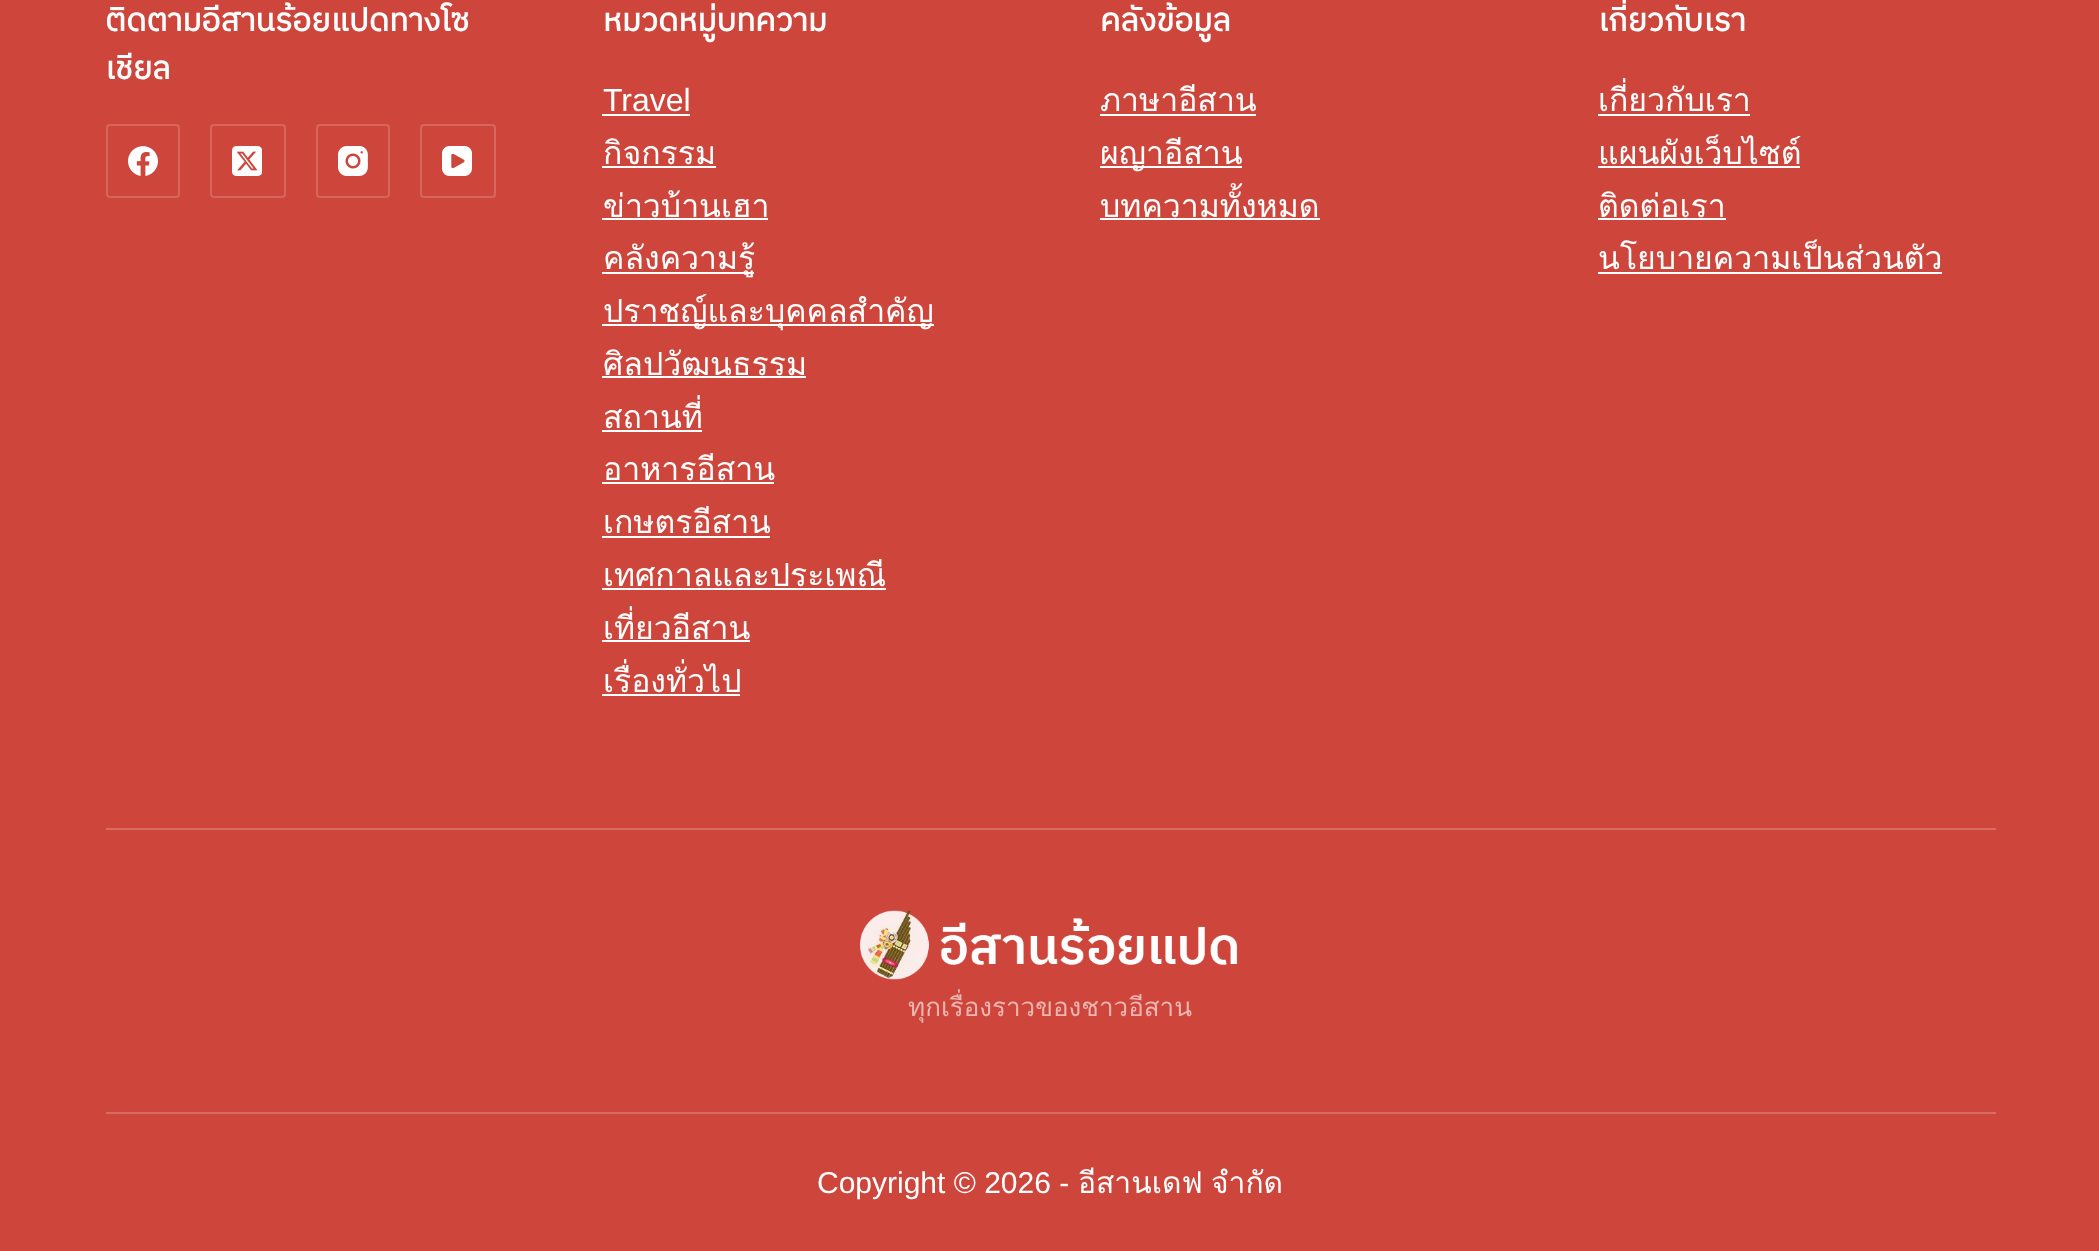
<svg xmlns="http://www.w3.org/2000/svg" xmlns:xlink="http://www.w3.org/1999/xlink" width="2099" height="1251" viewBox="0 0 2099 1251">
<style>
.cls-1{font:bold 32px IBM Plex Sans Thai;fill:#ffffff}
.cls-2{font:32px Liberation Sans;fill:#ffffff}
.cls-3{font:32px Loma;fill:#ffffff}
.cls-4{font:26px Loma;fill:#ebb5b1}
.cls-5{font:30px Liberation Sans;fill:#ffffff}
.cls-6{font:30px Loma;fill:#ffffff}
</style>
<rect width="100%" height="100%" fill="#ce463b"/>
<rect fill="#d86b62" x="106" y="828" width="1890" height="2"/>
<rect fill="none" stroke="#d7675e" stroke-width="2" x="107" y="125" width="72" height="72" rx="3"/>
<image xlink:href="image0.png" x="128" y="146" width="30" height="30"/>
<rect fill="none" stroke="#d7675e" stroke-width="2" x="211" y="125" width="74" height="72" rx="3"/>
<image xlink:href="image1.png" x="232" y="146" width="30" height="30"/>
<rect fill="none" stroke="#d7675e" stroke-width="2" x="317" y="125" width="72" height="72" rx="3"/>
<image xlink:href="image2.png" x="338" y="146" width="30" height="30"/>
<rect fill="none" stroke="#d7675e" stroke-width="2" x="421" y="125" width="74" height="72" rx="3"/>
<image xlink:href="image3.png" x="442" y="146" width="30" height="30"/>
<rect fill="#ffffff" x="602" y="114" width="88" height="2"/>
<rect fill="#ffffff" x="602" y="166" width="114" height="2"/>
<rect fill="#ffffff" x="602" y="218" width="166" height="2"/>
<rect fill="#ffffff" x="602" y="272" width="152" height="2"/>
<rect fill="#ffffff" x="602" y="324" width="332" height="2"/>
<rect fill="#ffffff" x="602" y="376" width="204" height="2"/>
<rect fill="#ffffff" x="602" y="430" width="100" height="2"/>
<rect fill="#ffffff" x="602" y="482" width="172" height="2"/>
<rect fill="#ffffff" x="602" y="536" width="168" height="2"/>
<rect fill="#ffffff" x="602" y="588" width="284" height="2"/>
<rect fill="#ffffff" x="602" y="640" width="148" height="2"/>
<rect fill="#ffffff" x="602" y="694" width="138" height="2"/>
<rect fill="#ffffff" x="1100" y="114" width="156" height="2"/>
<rect fill="#ffffff" x="1100" y="166" width="142" height="2"/>
<rect fill="#ffffff" x="1100" y="218" width="220" height="2"/>
<rect fill="#ffffff" x="1598" y="114" width="152" height="2"/>
<rect fill="#ffffff" x="1598" y="166" width="202" height="2"/>
<rect fill="#ffffff" x="1598" y="218" width="128" height="2"/>
<rect fill="#ffffff" x="1598" y="272" width="344" height="2"/>
<image xlink:href="image4.png" x="860" y="910" width="378" height="70"/>
<rect fill="#d86b62" x="106" y="1112" width="1890" height="2"/>
<text class="cls-1"><tspan x="105" y="31">ติดตามอีสานร้อยแปดทางโซ</tspan><tspan x="105" y="79">เชียล</tspan></text>
<text class="cls-1" x="603" y="31">หมวดหมู่บทความ</text>
<text class="cls-2" x="603" y="111">Travel</text>
<text class="cls-3"><tspan x="603" y="164">กิจกรรม</tspan><tspan x="603" y="217">ข่าวบ้านเฮา</tspan><tspan x="603" y="269">คลังความรู้</tspan><tspan x="603" y="322">ปราชญ์และบุคคลสำคัญ</tspan><tspan x="603" y="375">ศิลปวัฒนธรรม</tspan><tspan x="603" y="428">สถานที่</tspan><tspan x="603" y="480">อาหารอีสาน</tspan><tspan x="603" y="533">เกษตรอีสาน</tspan><tspan x="603" y="586">เทศกาลและประเพณี</tspan><tspan x="603" y="639">เที่ยวอีสาน</tspan><tspan x="603" y="692">เรื่องทั่วไป</tspan></text>
<text class="cls-1" x="1100" y="31">คลังข้อมูล</text>
<text class="cls-3"><tspan x="1100" y="111">ภาษาอีสาน</tspan><tspan x="1100" y="164">ผญาอีสาน</tspan><tspan x="1100" y="217">บทความทั้งหมด</tspan></text>
<text class="cls-1" x="1598" y="31">เกี่ยวกับเรา</text>
<text class="cls-3"><tspan x="1598" y="111">เกี่ยวกับเรา</tspan><tspan x="1598" y="164">แผนผังเว็บไซต์</tspan><tspan x="1598" y="217">ติดต่อเรา</tspan><tspan x="1598" y="269">นโยบายความเป็นส่วนตัว</tspan></text>
<text class="cls-4" x="908" y="1016">ทุกเรื่องราวของชาวอีสาน</text>
<text class="cls-5" x="817" y="1193">Copyright © 2026 -</text>
<text class="cls-6" x="1078" y="1193">อีสานเดฟ</text>
<text class="cls-6" x="1211" y="1193">จำกัด</text>
</svg>
